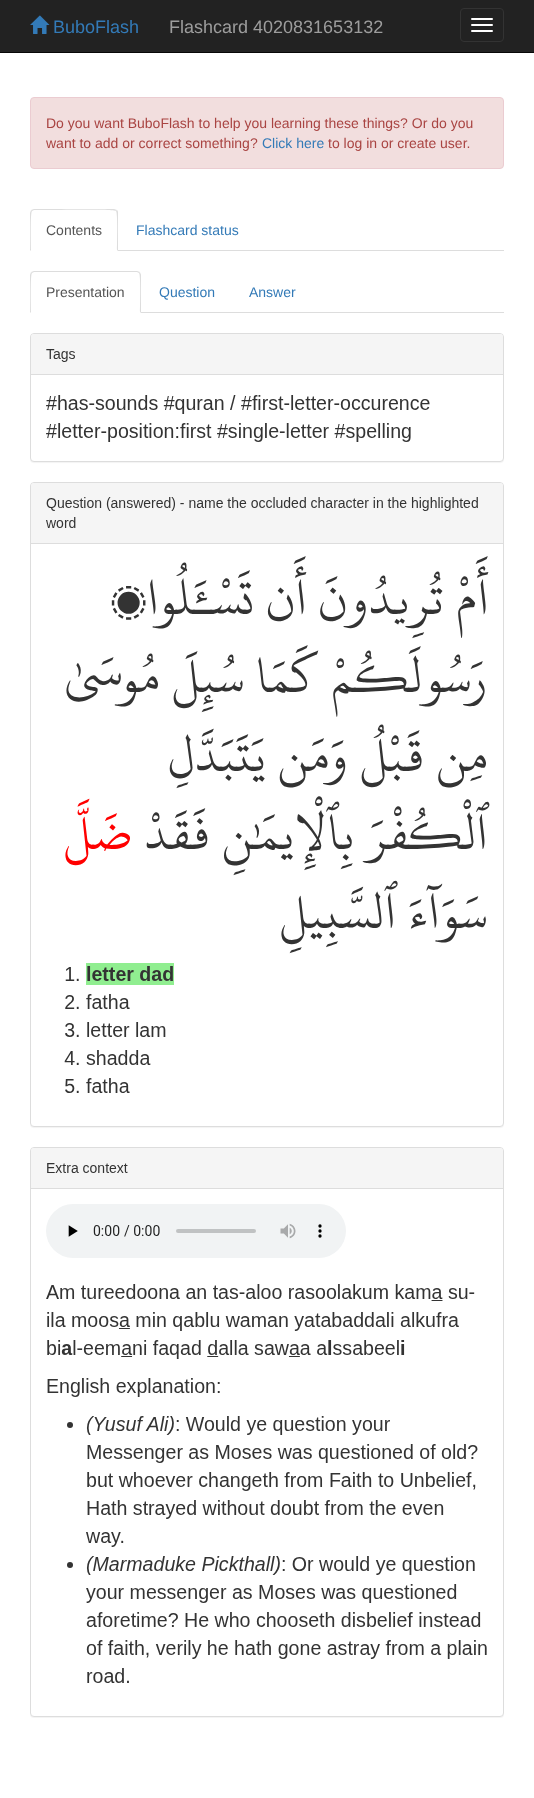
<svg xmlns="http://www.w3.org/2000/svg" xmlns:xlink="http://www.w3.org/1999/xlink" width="534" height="1798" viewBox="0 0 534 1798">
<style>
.cls-1{font:18px Liberation Sans;fill:#337ab7}
.cls-2{font:18px Liberation Sans;fill:#9d9d9d}
.cls-3{font:14px Liberation Sans;fill:#a94442}
.cls-4{font:14px Liberation Sans;fill:#337ab7}
.cls-5{font:14px Liberation Sans;fill:#555555}
</style>
<rect width="100%" height="100%" fill="#ffffff"/>
<rect fill="#222222" x="0" y="0" width="534" height="52"/>
<rect fill="#080808" x="0" y="52" width="534" height="1"/>
<image xlink:href="image0.png" x="30" y="15" width="20" height="19"/>
<rect fill="none" stroke="#333333" x="460.5" y="8.5" width="43" height="33" rx="3.5"/>
<rect fill="#ffffff" x="471" y="18" width="22" height="2" rx="1"/>
<rect fill="#ffffff" x="471" y="24" width="22" height="2" rx="1"/>
<rect fill="#ffffff" x="471" y="30" width="22" height="2" rx="1"/>
<rect fill="#f2dede" stroke="#ebccd1" x="30.5" y="97.5" width="473" height="71" rx="3.5"/>
<rect fill="#dddddd" x="118" y="250" width="386" height="1"/>
<path fill="#dddddd" d="M34 209L31 210L32 211L34 210H47C55 210 114 209 116 211L117 210L114 209Z"/>
<path fill="#dddddd" d="M118 251V213C118 212 118 211 117 210L116 211C118 213 117 245 117 250Z"/>
<path fill="#dddddd" d="M30 251L31 250C31 245 30 213 32 211L31 210L30 213Z"/>
<rect fill="#dddddd" x="141" y="312" width="363" height="1"/>
<path fill="#dddddd" d="M34 271L31 272L32 273L34 272H137L139 273L140 272L137 271Z"/>
<path fill="#dddddd" d="M141 313V275C141 274 140 273 140 272L139 273C141 275 140 307 140 312Z"/>
<path fill="#dddddd" d="M30 313L31 312C31 307 30 275 32 273L31 272L30 275Z"/>
<image xlink:href="image1.png" x="30" y="333" width="474" height="1385"/>
<text class="cls-1" x="53" y="33">BuboFlash</text>
<text class="cls-2" x="169" y="33">Flashcard 4020831653132</text>
<text class="cls-3"><tspan x="46" y="128">Do you want BuboFlash to help you learning these things? Or do you</tspan><tspan x="46" y="148">want to add or correct something?</tspan></text>
<text class="cls-4" x="262" y="148">Click here</text>
<text class="cls-3" x="328" y="148">to log in or create user.</text>
<text class="cls-5" x="46" y="235">Contents</text>
<text class="cls-4" x="136" y="235">Flashcard status</text>
<text class="cls-5" x="46" y="297">Presentation</text>
<text class="cls-4" x="159" y="297">Question</text>
<text class="cls-4" x="249" y="297">Answer</text>
</svg>
